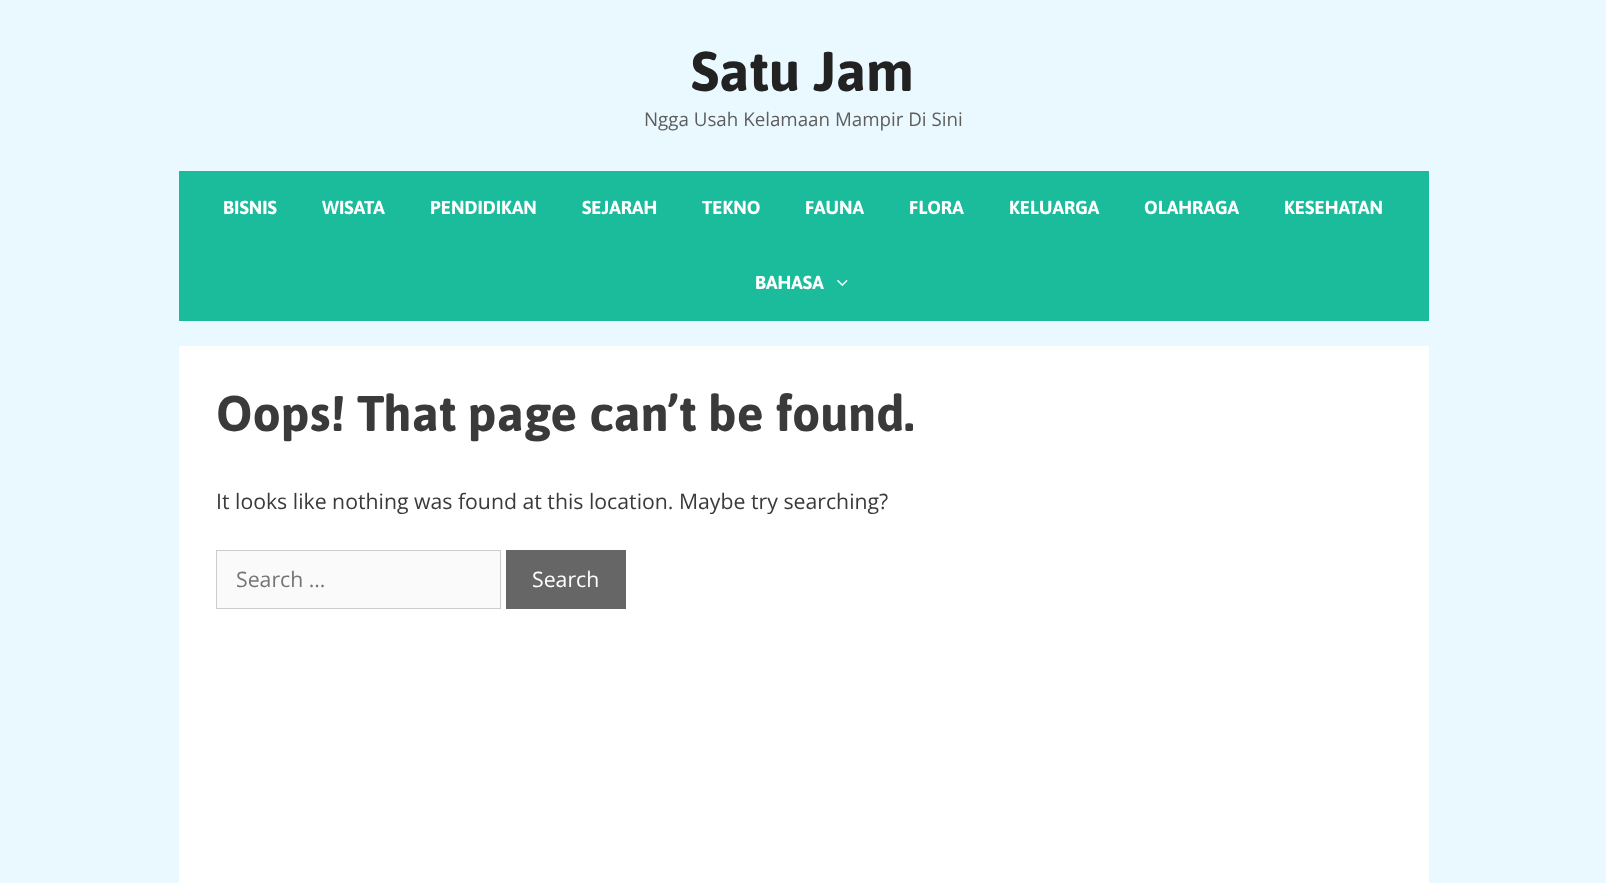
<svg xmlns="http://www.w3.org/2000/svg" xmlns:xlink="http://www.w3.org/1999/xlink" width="1606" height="883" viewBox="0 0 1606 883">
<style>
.cls-1{font:bold 56px Asap;fill:#222222}
.cls-2{font:18.75px Open Sans;fill:#5e5e5e}
.cls-3{font:bold 18.75px Asap;fill:#ffffff}
.cls-4{font:bold 50px Asap;fill:#3a3a3a}
.cls-5{font:21.25px Open Sans;fill:#3a3a3a}
.cls-6{font:21.25px Open Sans;fill:#757575}
.cls-7{font:21.25px Open Sans;fill:#ffffff}
</style>
<rect width="100%" height="100%" fill="#eaf9ff"/>
<rect fill="#1abc9c" x="179" y="171" width="1250" height="150"/>
<image xlink:href="image0.png" x="837" y="280" width="11" height="6"/>
<rect fill="#ffffff" x="179" y="346" width="1250" height="537"/>
<rect fill="#fafafa" stroke="#cccccc" x="216.5" y="550.5" width="284" height="58"/>
<rect fill="#666666" x="506" y="550" width="120" height="59"/>
<text class="cls-1" x="691" y="91">Satu Jam</text>
<text class="cls-2" x="644" y="126">Ngga Usah Kelamaan Mampir Di Sini</text>
<text class="cls-3" x="223" y="214">BISNIS</text>
<text class="cls-3" x="322" y="214">WISATA</text>
<text class="cls-3" x="430" y="214">PENDIDIKAN</text>
<text class="cls-3" x="582" y="214">SEJARAH</text>
<text class="cls-3" x="702" y="214">TEKNO</text>
<text class="cls-3" x="805" y="214">FAUNA</text>
<text class="cls-3" x="909" y="214">FLORA</text>
<text class="cls-3" x="1009" y="214">KELUARGA</text>
<text class="cls-3" x="1144" y="214">OLAHRAGA</text>
<text class="cls-3" x="1284" y="214">KESEHATAN</text>
<text class="cls-3" x="755" y="289">BAHASA</text>
<text class="cls-4" x="216" y="431">Oops! That page can’t be found.</text>
<text class="cls-5" x="216" y="509">It looks like nothing was found at this location. Maybe try searching?</text>
<text class="cls-6" x="236" y="587">Search …</text>
<text class="cls-7" x="532" y="587">Search</text>
</svg>
